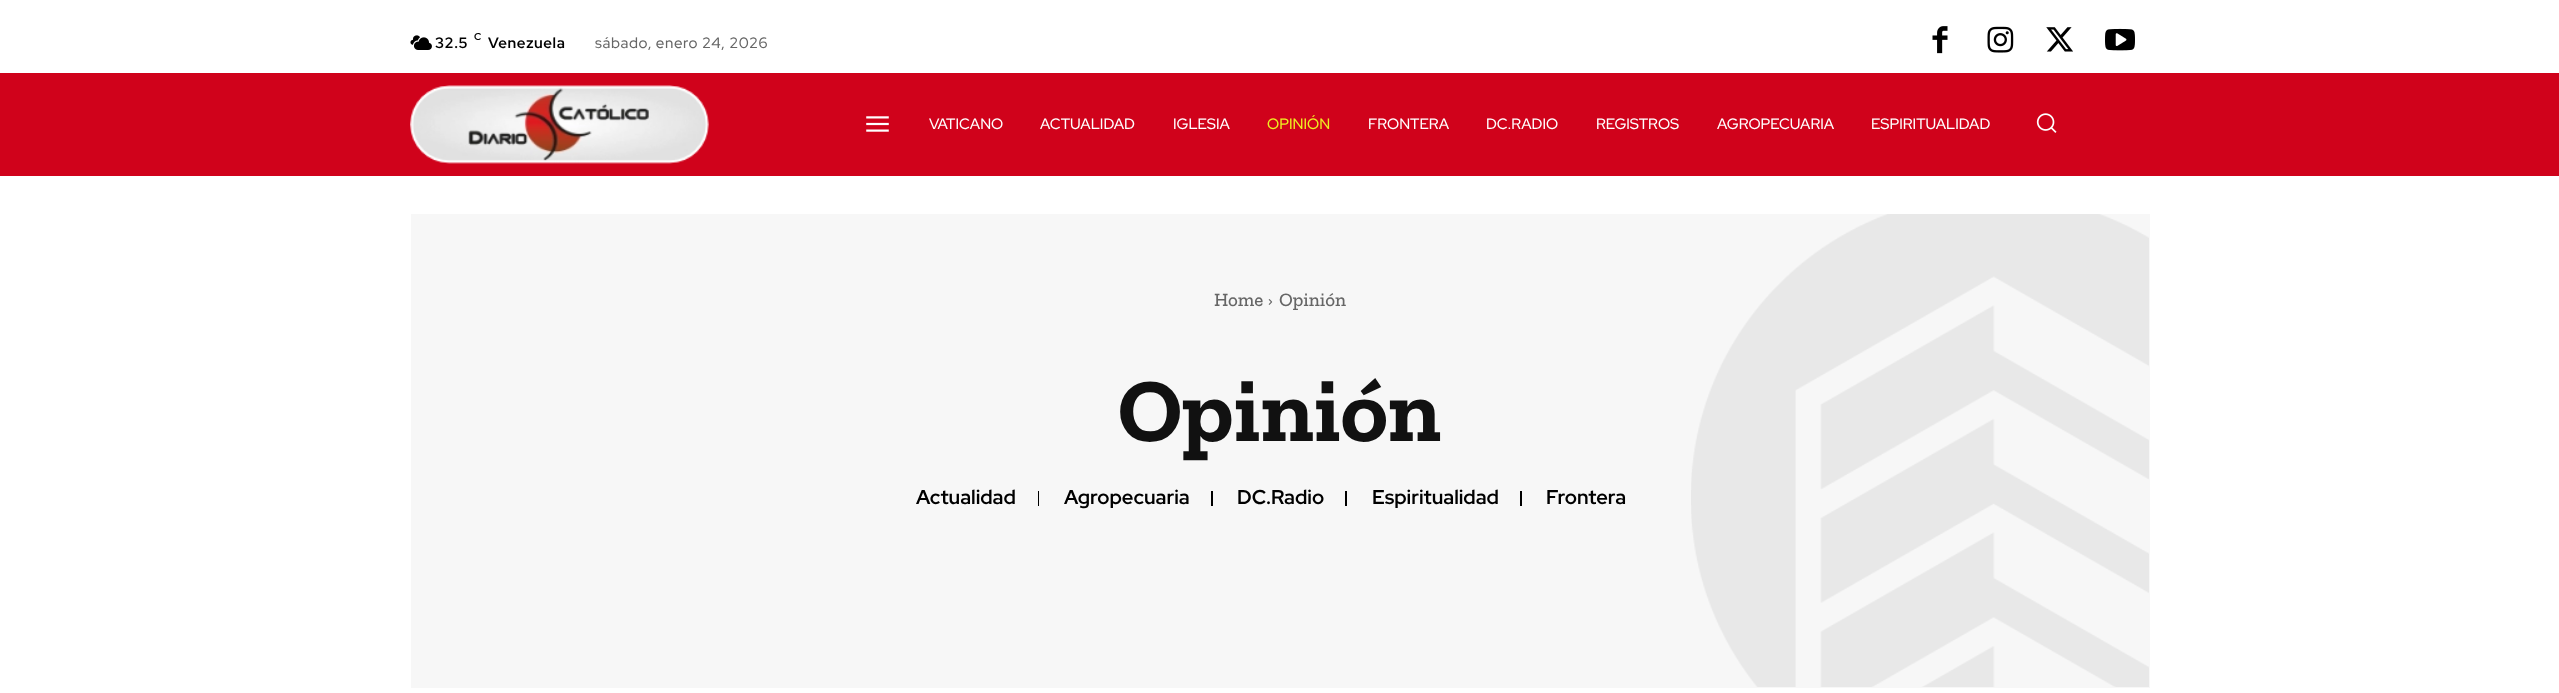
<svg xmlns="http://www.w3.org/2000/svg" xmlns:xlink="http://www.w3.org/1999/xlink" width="2559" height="693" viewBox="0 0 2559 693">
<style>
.cls-1{font:bold 15px Red Hat Display;letter-spacing:0.6px;fill:#000000}
.cls-2{font:bold 10px Red Hat Display;letter-spacing:0.6px;fill:#000000}
.cls-3{font:500 15px Red Hat Display;letter-spacing:0.6px;fill:#666666}
.cls-4{font:500 15px Red Hat Display;fill:#ffffff}
.cls-5{font:500 15px Red Hat Display;fill:#eeee22}
.cls-6{font:500 19px Zilla Slab;fill:#666666}
.cls-7{font:bold 90px Zilla Slab;fill:#111111}
.cls-8{font:bold 20px Red Hat Display;fill:#000000}
</style>
<rect width="100%" height="100%" fill="#ffffff"/>
<image xlink:href="image0.png" x="410" y="35" width="22" height="15"/>
<image xlink:href="image1.png" x="1932" y="26" width="16" height="28"/>
<image xlink:href="image2.png" x="1987" y="26" width="27" height="27"/>
<image xlink:href="image3.png" x="2046" y="27" width="27" height="25"/>
<image xlink:href="image4.png" x="2105" y="28" width="30" height="23"/>
<rect fill="#d0021b" x="0" y="73" width="2559" height="103"/>
<image xlink:href="image5.png" x="410" y="85" width="299" height="79"/>
<image xlink:href="image6.png" x="866" y="116" width="23" height="16"/>
<image xlink:href="image7.png" x="2036" y="113" width="21" height="20"/>
<rect fill="#f7f7f7" x="411" y="214" width="1739" height="474"/>
<image xlink:href="image8.png" x="1691" y="214" width="458" height="473"/>
<image xlink:href="image9.png" x="1268" y="299" width="5" height="6"/>
<rect fill="#000000" x="1038" y="491" width="1" height="15"/>
<rect fill="#000000" x="1211" y="491" width="2" height="15"/>
<rect fill="#000000" x="1345" y="491" width="2" height="15"/>
<rect fill="#000000" x="1520" y="491" width="2" height="15"/>
<text class="cls-1" x="435" y="48">32.5</text>
<text class="cls-2" x="474" y="40">C</text>
<text class="cls-1" x="488" y="48">Venezuela</text>
<text class="cls-3" x="595" y="48">sábado, enero 24, 2026</text>
<text class="cls-4" x="929" y="129">VATICANO</text>
<text class="cls-4" x="1040" y="129">ACTUALIDAD</text>
<text class="cls-4" x="1173" y="129">IGLESIA</text>
<text class="cls-5" x="1267" y="129">OPINIÓN</text>
<text class="cls-4" x="1368" y="129">FRONTERA</text>
<text class="cls-4" x="1486" y="129">DC.RADIO</text>
<text class="cls-4" x="1596" y="129">REGISTROS</text>
<text class="cls-4" x="1717" y="129">AGROPECUARIA</text>
<text class="cls-4" x="1871" y="129">ESPIRITUALIDAD</text>
<text class="cls-6" x="1214" y="306">Home</text>
<text class="cls-6" x="1279" y="306">Opinión</text>
<text class="cls-7" x="1118" y="441">Opinión</text>
<text class="cls-8" x="916" y="504">Actualidad</text>
<text class="cls-8" x="1064" y="504">Agropecuaria</text>
<text class="cls-8" x="1237" y="504">DC.Radio</text>
<text class="cls-8" x="1372" y="504">Espiritualidad</text>
<text class="cls-8" x="1546" y="504">Frontera</text>
</svg>
